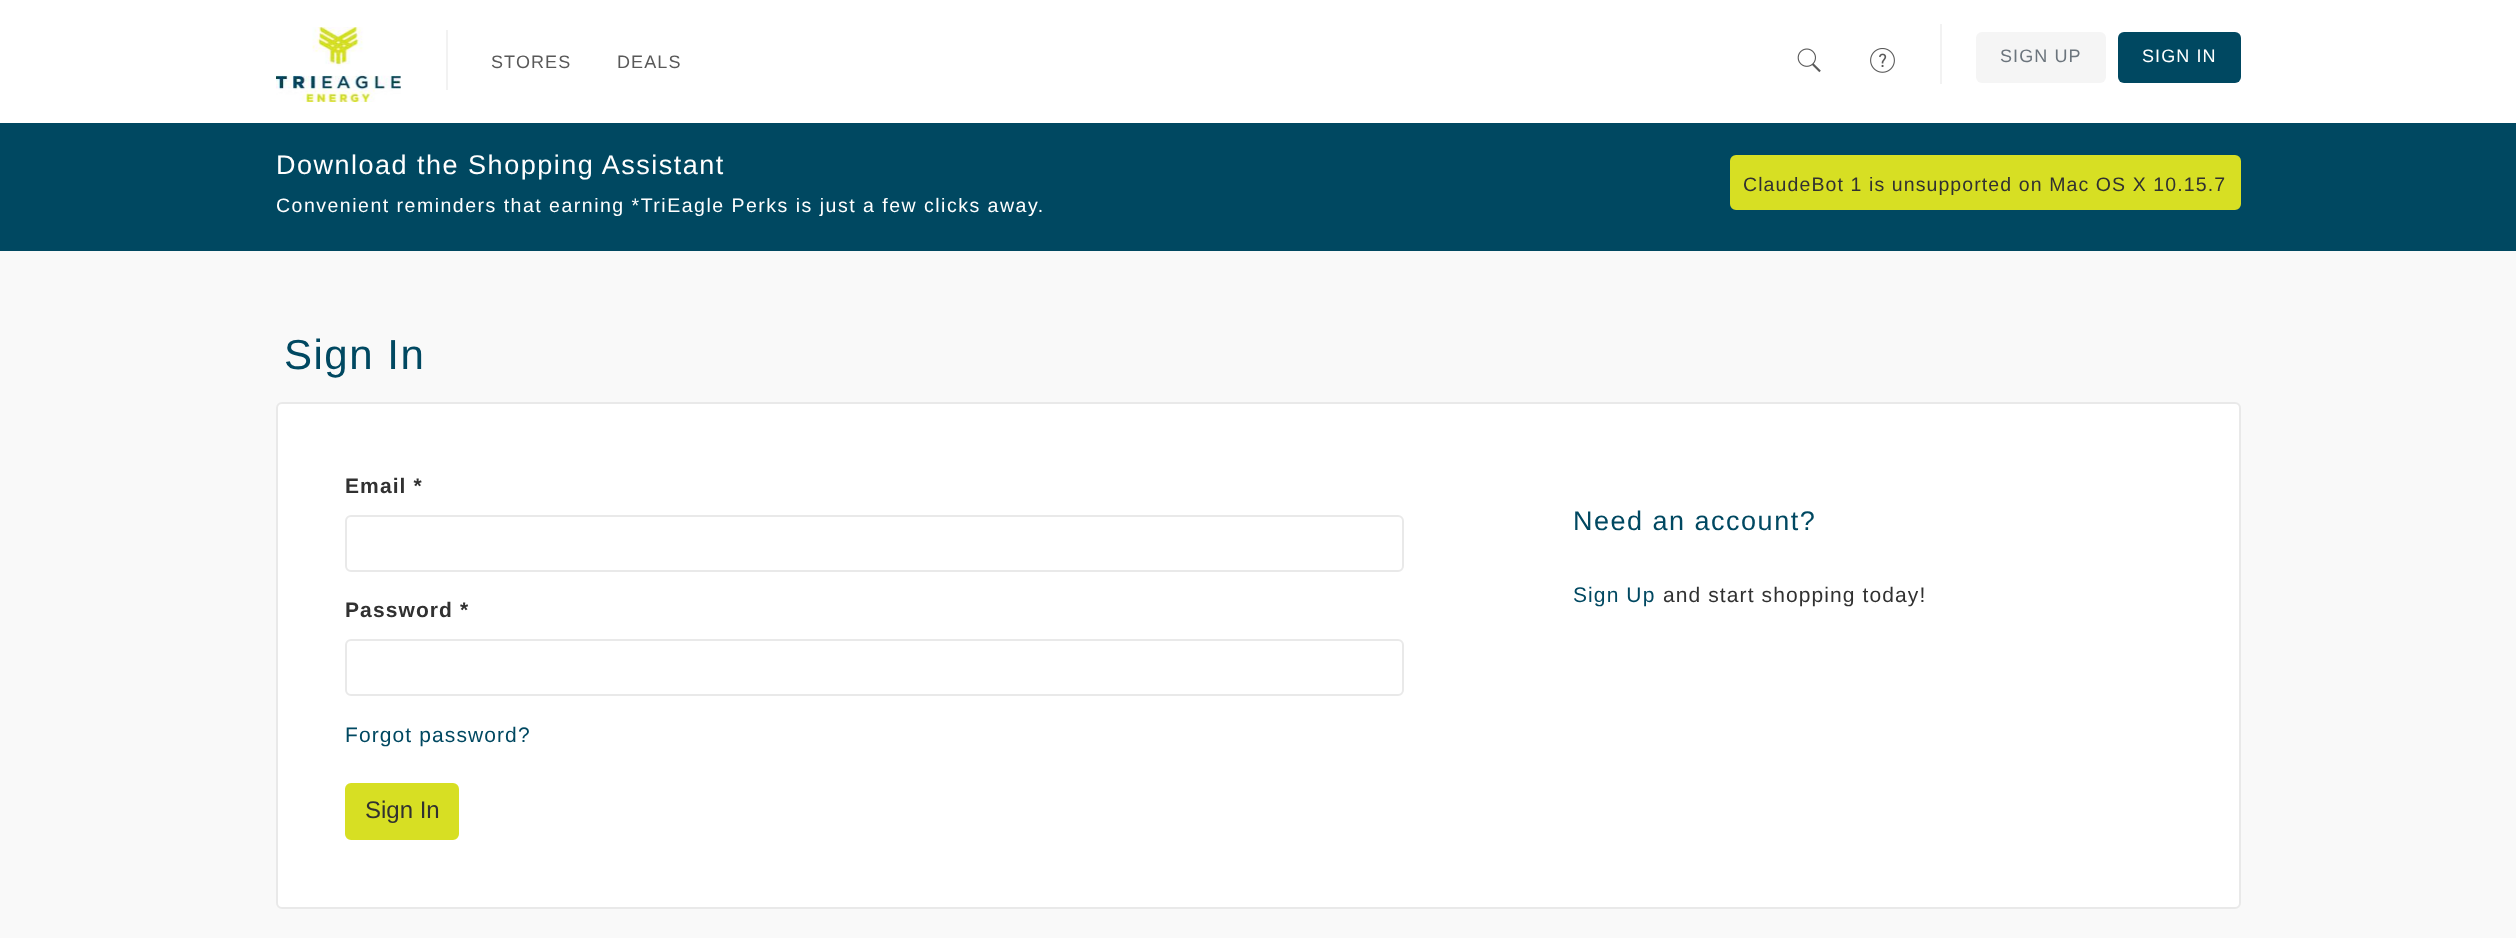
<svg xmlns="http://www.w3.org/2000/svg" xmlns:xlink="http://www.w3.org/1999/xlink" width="2516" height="938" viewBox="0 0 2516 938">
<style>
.cls-1{font:18px Liberation Sans;letter-spacing:1.1px;fill:#595959}
.cls-2{font:18px Liberation Sans;letter-spacing:1.1px;fill:#6c757d}
.cls-3{font:18px Liberation Sans;letter-spacing:1.1px;fill:#ffffff}
.cls-4{font:27px Liberation Sans;letter-spacing:1.5px;fill:#ffffff}
.cls-5{font:19.5px Liberation Sans;letter-spacing:1.5px;fill:#ffffff}
.cls-6{font:19.5px Liberation Sans;letter-spacing:1.1px;fill:#313131}
.cls-7{font:42px Liberation Sans;letter-spacing:1.5px;fill:#004861}
.cls-8{font:bold 21px Liberation Sans;letter-spacing:1.1px;fill:#313131}
.cls-9{font:21px Liberation Sans;letter-spacing:1.1px;fill:#004861}
.cls-10{font:24px Liberation Sans;fill:#313131}
.cls-11{font:27px Liberation Sans;letter-spacing:1.5px;fill:#004861}
.cls-12{font:21px Liberation Sans;letter-spacing:1.1px;fill:#313131}
</style>
<rect width="100%" height="100%" fill="#f9f9f9"/>
<rect fill="#ffffff" x="0" y="0" width="2516" height="123"/>
<image xlink:href="image0.png" x="276" y="27" width="125" height="75"/>
<rect fill="#f2f2f2" x="446" y="30" width="2" height="60"/>
<image xlink:href="image1.png" x="1797" y="48" width="24" height="25"/>
<image xlink:href="image2.png" x="1870" y="48" width="25" height="25"/>
<rect fill="#f2f2f2" x="1940" y="24" width="2" height="60"/>
<rect fill="#f5f5f5" x="1976" y="32" width="130" height="51" rx="6"/>
<rect fill="#004861" x="2118" y="32" width="123" height="51" rx="6"/>
<rect fill="#004861" x="0" y="123" width="2516" height="128"/>
<rect fill="#d7df23" stroke="#d7df23" stroke-width="2" x="1731" y="156" width="509" height="53" rx="5"/>
<rect fill="#ffffff" stroke="#e9e9e9" stroke-width="2" x="277" y="403" width="1963" height="505" rx="5"/>
<rect fill="none" stroke="#e9e9e9" stroke-width="2" x="346" y="516" width="1057" height="55" rx="5"/>
<rect fill="none" stroke="#e9e9e9" stroke-width="2" x="346" y="640" width="1057" height="55" rx="5"/>
<rect fill="#d7df23" stroke="#d7df23" stroke-width="2" x="346" y="784" width="112" height="55" rx="5"/>
<text class="cls-1" x="491" y="68">STORES</text>
<text class="cls-1" x="617" y="68">DEALS</text>
<text class="cls-2" x="2000" y="62">SIGN UP</text>
<text class="cls-3" x="2142" y="62">SIGN IN</text>
<text class="cls-4" x="276" y="174">Download the Shopping Assistant</text>
<text class="cls-5" x="276" y="212">Convenient reminders that earning *TriEagle Perks is just a few clicks away.</text>
<text class="cls-6" x="1743" y="191">ClaudeBot 1 is unsupported on Mac OS X 10.15.7</text>
<text class="cls-7" x="284" y="369">Sign In</text>
<text class="cls-8" x="345" y="493">Email *</text>
<text class="cls-8" x="345" y="617">Password *</text>
<text class="cls-9" x="345" y="742">Forgot password?</text>
<text class="cls-10" x="365" y="818">Sign In</text>
<text class="cls-11" x="1573" y="530">Need an account?</text>
<text class="cls-9" x="1573" y="602">Sign Up</text>
<text class="cls-12" x="1663" y="602">and start shopping today!</text>
</svg>
